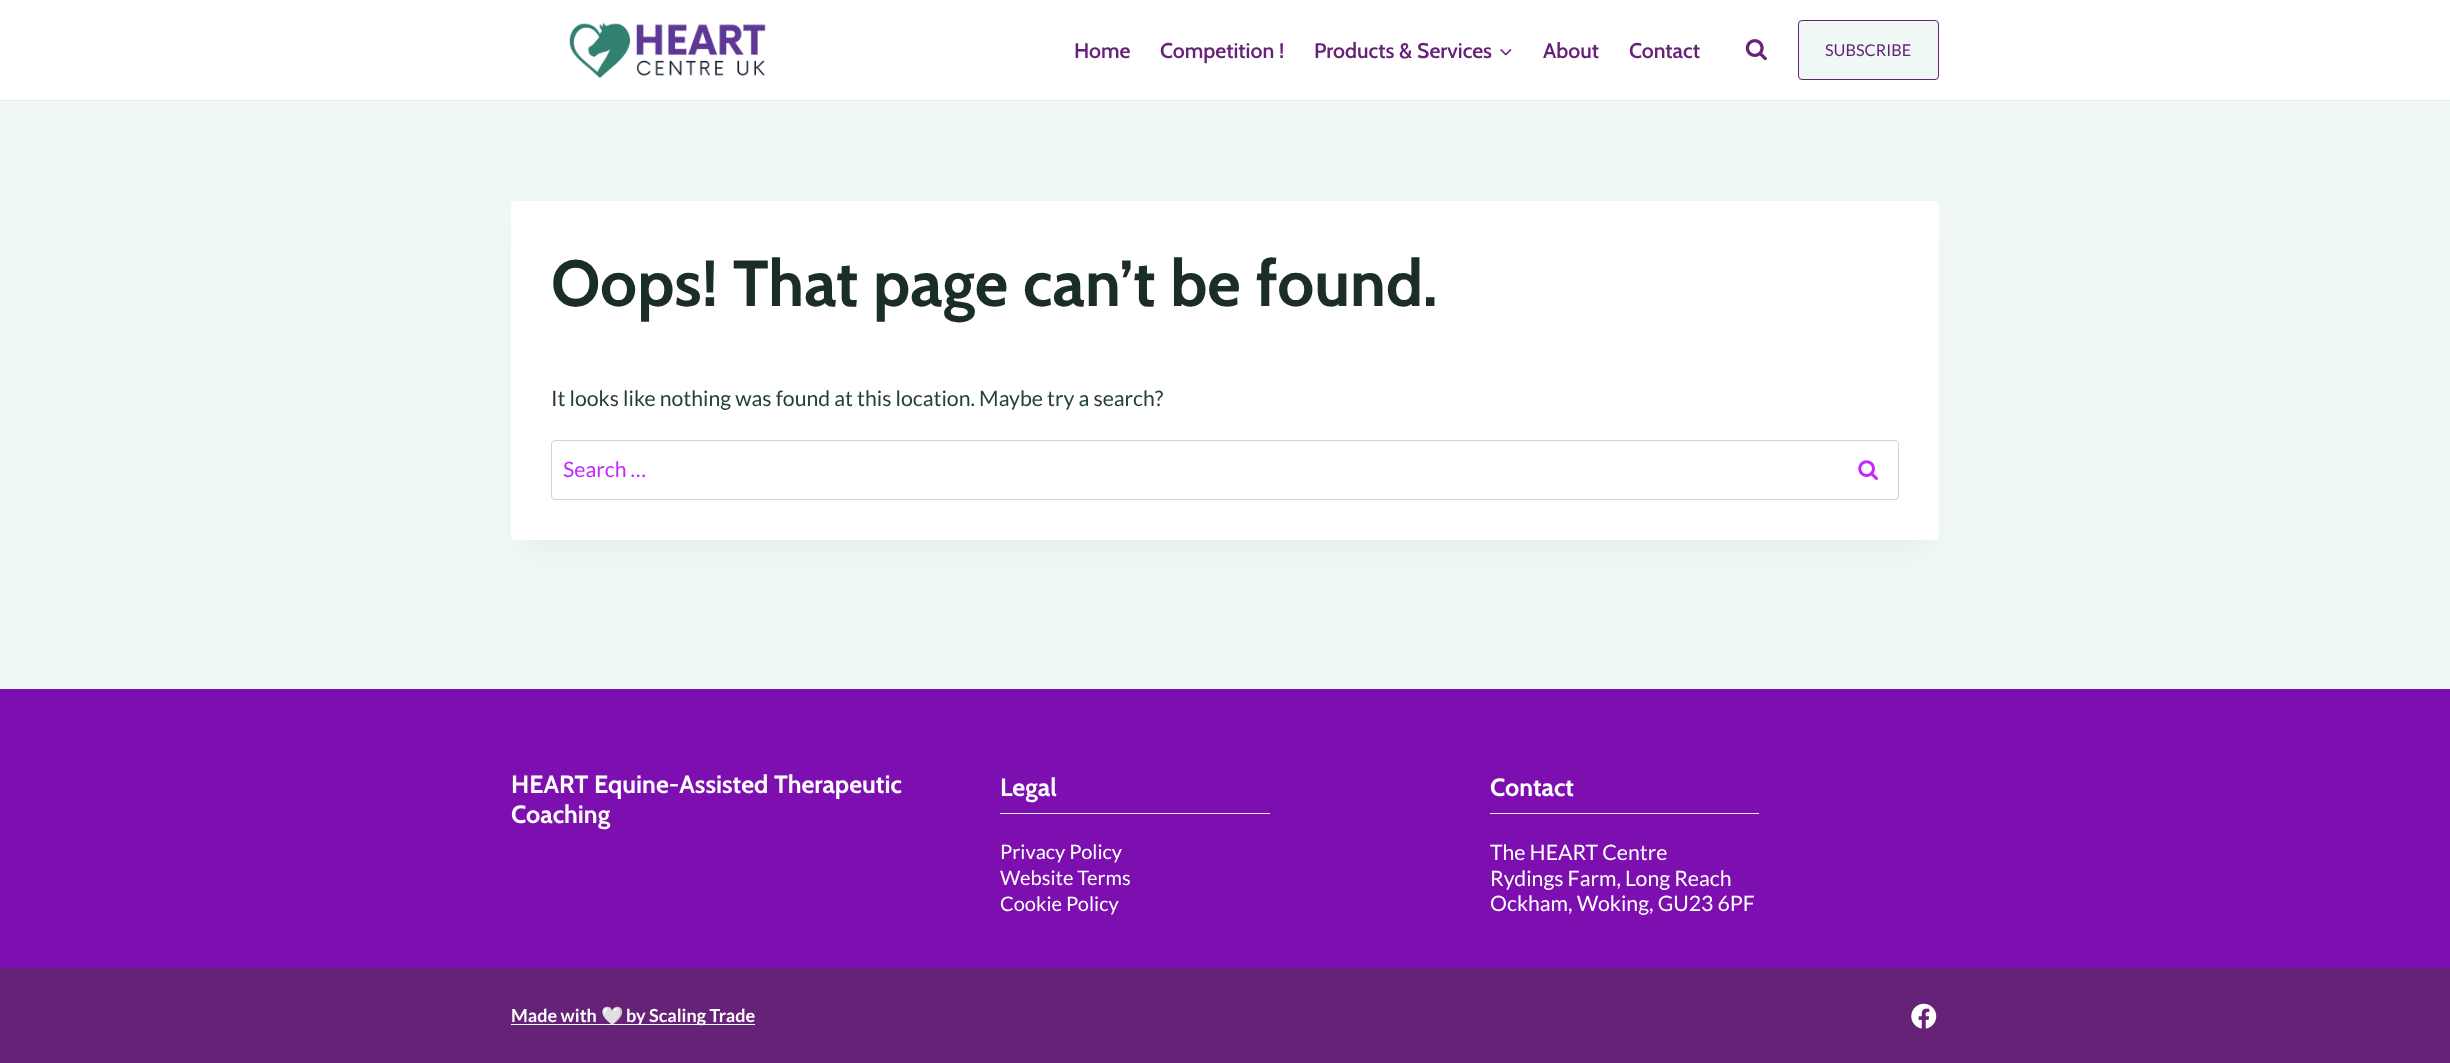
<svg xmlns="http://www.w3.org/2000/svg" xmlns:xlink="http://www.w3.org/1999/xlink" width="2450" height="1063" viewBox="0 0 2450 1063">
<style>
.cls-1{font:600 21.25px Cabin;fill:#662277}
.cls-2{font:16.25px Lato;fill:#662277}
.cls-3{font:bold 65px Cabin;fill:#1a2d29}
.cls-4{font:21.25px Lato;fill:#264037}
.cls-5{font:21.25px Lato;fill:#c627ff}
.cls-6{font:bold 25px Cabin;fill:#ffffff}
.cls-7{font:20px Lato;fill:#ffffff}
.cls-8{font:21.25px Lato;fill:#ffffff}
.cls-9{font:bold 18px Lato;fill:#ffffff}
.cls-10{font:bold 18px Noto Color Emoji;fill:#ffffff}
</style>
<rect width="100%" height="100%" fill="#f0f8f6"/>
<rect fill="#ffffff" x="0" y="0" width="2450" height="100"/>
<rect fill="#def0eb" x="0" y="100" width="2450" height="1"/>
<image xlink:href="image0.png" x="569" y="22" width="197" height="56"/>
<image xlink:href="image1.png" x="1500" y="49" width="12" height="7"/>
<image xlink:href="image2.png" x="1745" y="39" width="22" height="21"/>
<rect fill="#f0f8f6" stroke="#662277" x="1798.5" y="20.5" width="140" height="59" rx="3.5"/>
<rect fill="#000000" fill-opacity="0.05" filter="blur(15.5px)" x="524" y="233" width="1402" height="313"/>
<rect fill="#ffffff" x="511" y="201" width="1428" height="339" rx="5"/>
<rect fill="none" stroke="#cbd5e0" x="551.5" y="440.5" width="1347" height="59" rx="3.5"/>
<image xlink:href="image3.png" x="1858" y="460" width="20" height="20"/>
<rect fill="#7d0eaf" x="0" y="689" width="2450" height="279"/>
<rect fill="#eeeeee" x="1000" y="813" width="270" height="1"/>
<rect fill="#eeeeee" x="1490" y="813" width="269" height="1"/>
<rect fill="#662277" x="0" y="968" width="2450" height="95"/>
<rect fill="#ffffff" x="511" y="1024" width="244" height="1"/>
<image xlink:href="image4.png" x="1911" y="1003" width="26" height="26"/>
<text class="cls-1" x="1074" y="58">Home</text>
<text class="cls-1" x="1160" y="58">Competition !</text>
<text class="cls-1" x="1314" y="58">Products &amp; Services</text>
<text class="cls-1" x="1543" y="58">About</text>
<text class="cls-1" x="1629" y="58">Contact</text>
<text class="cls-2" x="1825" y="56">SUBSCRIBE</text>
<text class="cls-3" x="551" y="306">Oops! That page can’t be found.</text>
<text class="cls-4" x="551" y="406">It looks like nothing was found at this location. Maybe try a search?</text>
<text class="cls-5" x="563" y="477">Search …</text>
<text class="cls-6"><tspan x="511" y="793">HEART Equine-Assisted Therapeutic</tspan><tspan x="511" y="823">Coaching</tspan></text>
<text class="cls-6" x="1000" y="796">Legal</text>
<text class="cls-7"><tspan x="1000" y="859">Privacy Policy</tspan><tspan x="1000" y="885">Website Terms</tspan><tspan x="1000" y="911">Cookie Policy</tspan></text>
<text class="cls-6" x="1490" y="796">Contact</text>
<text class="cls-8"><tspan x="1490" y="860">The HEART Centre</tspan><tspan x="1490" y="886">Rydings Farm, Long Reach</tspan><tspan x="1490" y="911">Ockham, Woking, GU23 6PF</tspan></text>
<text class="cls-9" x="511" y="1022">Made with</text>
<text class="cls-10" x="601" y="1022">🤍</text>
<text class="cls-9" x="626" y="1022">by Scaling Trade</text>
</svg>
